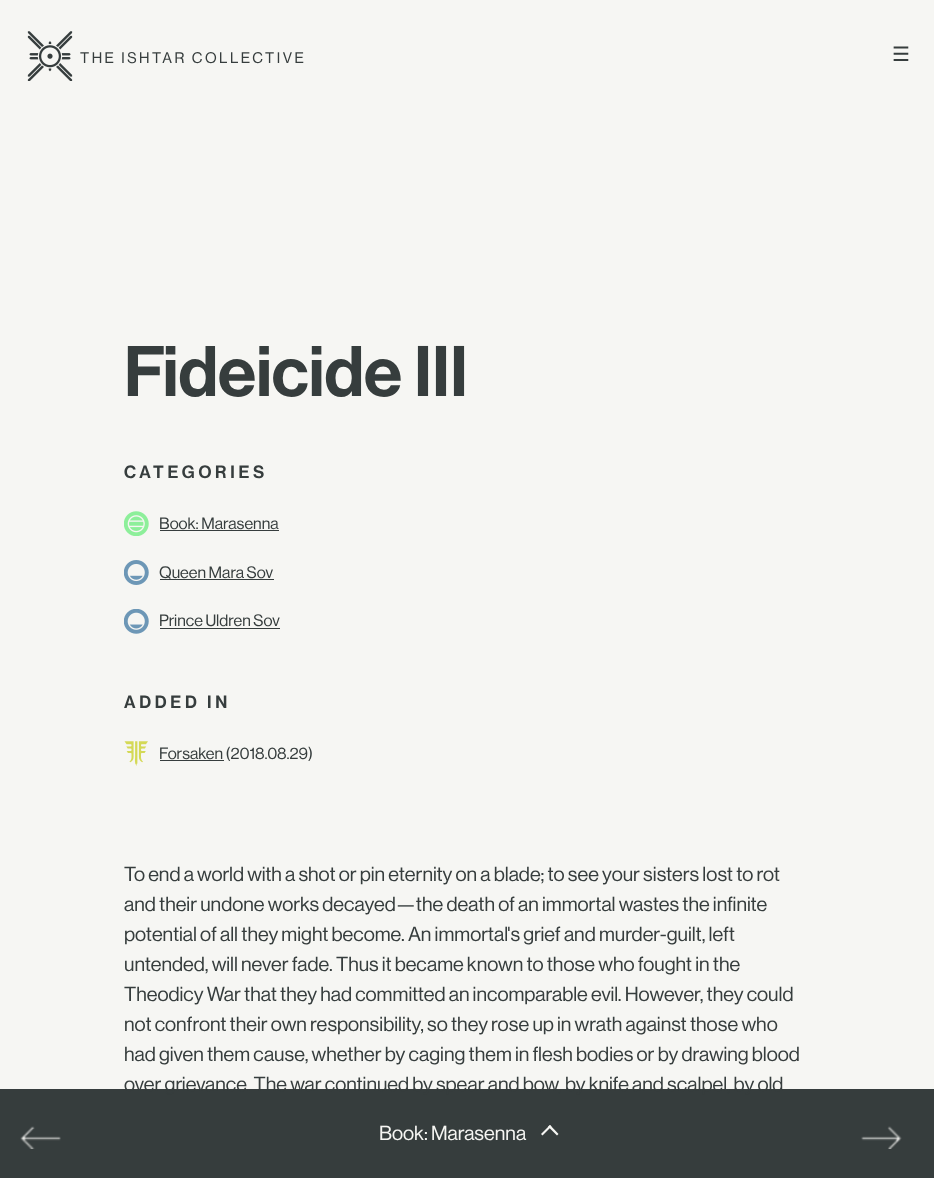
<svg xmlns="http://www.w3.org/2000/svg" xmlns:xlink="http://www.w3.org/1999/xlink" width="934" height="1178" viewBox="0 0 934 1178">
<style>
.cls-1{font:15px 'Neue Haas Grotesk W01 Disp';letter-spacing:2.5px;fill:#363d3d}
.cls-2{font:20px DejaVu Sans;fill:#363d3d}
.cls-3{font:500 70px 'Neue Haas Grotesk W01 Disp';fill:#363d3d}
.cls-4{font:500 17.5px 'Neue Haas Grotesk W01 Disp';letter-spacing:3.75px;fill:#363d3d}
.cls-5{font:16.25px 'Neue Haas Grotesk W01 Disp';fill:#363d3d}
.cls-6{font:20px 'Neue Haas Grotesk W01 Disp';fill:#363d3d}
.cls-7{font:20px 'Neue Haas Grotesk W01 Disp';fill:#f6f6f3}
</style>
<rect width="100%" height="100%" fill="#f6f6f3"/>
<image xlink:href="image0.png" x="27" y="31" width="46" height="50"/>
<image xlink:href="image1.png" x="124" y="511" width="25" height="25"/>
<rect fill="#363d3d" x="160" y="530" width="119" height="1"/>
<image xlink:href="image2.png" x="124" y="560" width="25" height="25"/>
<rect fill="#363d3d" x="160" y="579" width="114" height="1"/>
<image xlink:href="image3.png" x="124" y="609" width="25" height="25"/>
<rect fill="#363d3d" x="160" y="628" width="120" height="1"/>
<image xlink:href="image4.png" x="124" y="741" width="24" height="25"/>
<rect fill="#363d3d" x="160" y="760" width="64" height="1"/>
<rect fill="#363d3d" x="0" y="1089" width="934" height="89"/>
<image xlink:href="image5.png" x="20" y="1126" width="41" height="23"/>
<path fill="#f6f6f3" d="M550 1125L558.5 1134L557 1135.5L548 1126.5Z"/>
<path fill="#f6f6f3" d="M550 1125L551.5 1126.5L542.5 1135.5L541 1134Z"/>
<image xlink:href="image6.png" x="861" y="1126" width="41" height="23"/>
<text class="cls-1" x="80" y="63">THE ISHTAR COLLECTIVE</text>
<text class="cls-2" x="892" y="61">☰</text>
<text class="cls-3" x="124" y="396">Fideicide III</text>
<text class="cls-4" x="124" y="478">CATEGORIES</text>
<text class="cls-5" x="159" y="529">Book: Marasenna</text>
<text class="cls-5" x="159" y="578">Queen Mara Sov</text>
<text class="cls-5" x="159" y="626">Prince Uldren Sov</text>
<text class="cls-4" x="124" y="708">ADDED IN</text>
<text class="cls-5" x="159" y="759">Forsaken (2018.08.29)</text>
<text class="cls-6"><tspan x="124" y="881">To end a world with a shot or pin eternity on a blade; to see your sisters lost to rot</tspan><tspan x="124" y="911">and their undone works decayed—the death of an immortal wastes the infinite</tspan><tspan x="124" y="941">potential of all they might become. An immortal's grief and murder-guilt, left</tspan><tspan x="124" y="971">untended, will never fade. Thus it became known to those who fought in the</tspan><tspan x="124" y="1001">Theodicy War that they had committed an incomparable evil. However, they could</tspan><tspan x="124" y="1031">not confront their own responsibility, so they rose up in wrath against those who</tspan><tspan x="124" y="1061">had given them cause, whether by caging them in flesh bodies or by drawing blood</tspan><tspan x="124" y="1091">over grievance. The war continued by spear and bow, by knife and scalpel, by old</tspan></text>
<text class="cls-7" x="379" y="1140">Book: Marasenna</text>
</svg>
